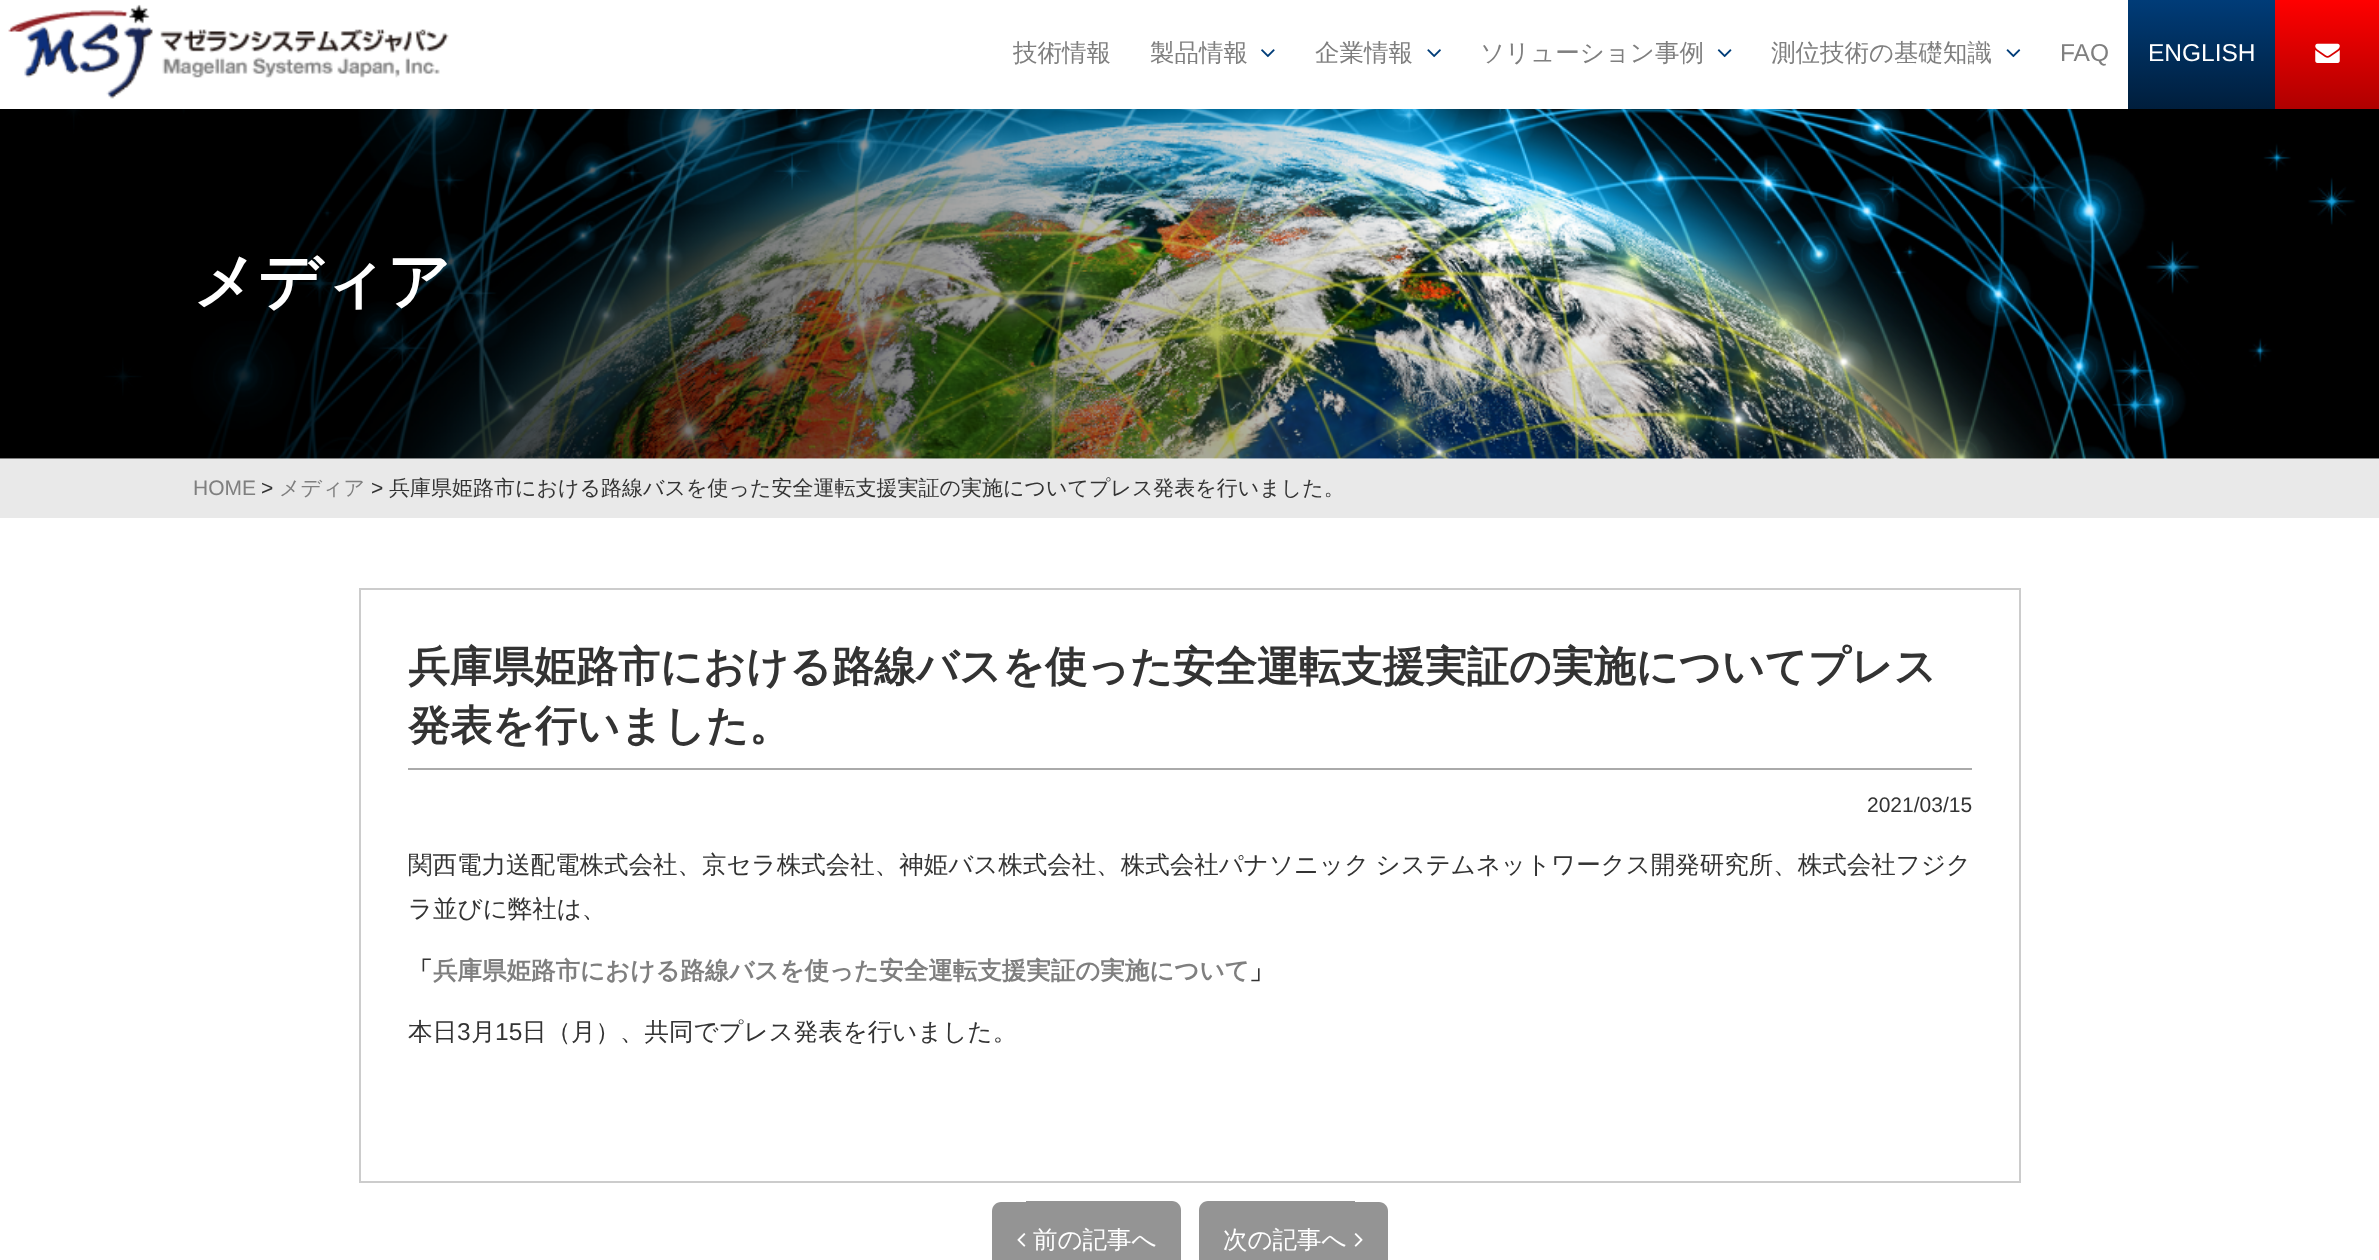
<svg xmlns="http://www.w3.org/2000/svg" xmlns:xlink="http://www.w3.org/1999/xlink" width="2379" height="1260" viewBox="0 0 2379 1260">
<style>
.cls-1{font:500 24.5px WenQuanYi Zen Hei;fill:#7f7f7f}
.cls-2{font:24.5px Liberation Sans;fill:#7f7f7f}
.cls-3{font:24.5px Liberation Sans;fill:#ffffff}
.cls-4{font:bold 63px WenQuanYi Zen Hei;fill:#ffffff}
.cls-5{font:21px Liberation Sans;fill:#7f7f7f}
.cls-6{font:21px Liberation Sans;fill:#333333}
.cls-7{font:500 21px WenQuanYi Zen Hei;fill:#7f7f7f}
.cls-8{font:500 21px WenQuanYi Zen Hei;fill:#333333}
.cls-9{font:bold 42px WenQuanYi Zen Hei;fill:#333333}
.cls-10{font:500 24.5px WenQuanYi Zen Hei;fill:#333333}
.cls-11{font:bold 24.5px WenQuanYi Zen Hei;fill:#333333}
.cls-12{font:bold 24.5px WenQuanYi Zen Hei;fill:#7f7f7f}
.cls-13{font:24.5px Liberation Sans;fill:#333333}
.cls-14{font:500 24.5px WenQuanYi Zen Hei;fill:#ffffff}
</style>
<defs>
<linearGradient id="g1" gradientUnits="userSpaceOnUse" x1="2202" y1="0" x2="2202" y2="109"><stop offset="0" stop-color="#003c78"/><stop offset="1" stop-color="#001e3c"/></linearGradient>
<linearGradient id="g2" gradientUnits="userSpaceOnUse" x1="2328" y1="0" x2="2328" y2="109"><stop offset="0" stop-color="#ff0000"/><stop offset="1" stop-color="#af0000"/></linearGradient>
</defs>
<rect width="100%" height="100%" fill="#ffffff"/>
<image xlink:href="image0.png" x="8" y="4" width="441" height="95"/>
<image xlink:href="image1.png" x="1261" y="49" width="14" height="9"/>
<image xlink:href="image2.png" x="1427" y="49" width="14" height="9"/>
<image xlink:href="image3.png" x="1717" y="49" width="15" height="9"/>
<image xlink:href="image4.png" x="2006" y="49" width="15" height="9"/>
<rect fill="url(#g1)" x="2128" y="0" width="147" height="109"/>
<rect fill="url(#g2)" x="2275" y="0" width="104" height="109"/>
<image xlink:href="image5.png" x="2315" y="43" width="25" height="20"/>
<image xlink:href="image6.png" x="0" y="109" width="2379" height="350"/>
<rect fill="#e9e9e9" x="0" y="459" width="2379" height="59"/>
<rect fill="none" stroke="#cccccc" stroke-width="2" x="360" y="589" width="1660" height="593"/>
<rect fill="#aaaaaa" x="408" y="768" width="1564" height="2"/>
<path fill="#949494" d="M1001 1202H1026V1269H1001C996 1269 992 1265 992 1260V1211C992 1206 996 1202 1001 1202Z"/>
<path fill="#949494" d="M1026 1201H1172C1177 1201 1181 1205 1181 1210V1260C1181 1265 1177 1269 1172 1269H1026Z"/>
<image xlink:href="image7.png" x="1017" y="1233" width="9" height="14"/>
<path fill="#949494" d="M1208 1201H1355V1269H1208C1203 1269 1199 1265 1199 1260V1210C1199 1205 1203 1201 1208 1201Z"/>
<path fill="#949494" d="M1355 1202H1379C1384 1202 1388 1206 1388 1211V1260C1388 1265 1384 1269 1379 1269H1355Z"/>
<image xlink:href="image8.png" x="1354" y="1233" width="9" height="14"/>
<text class="cls-1" x="1013" y="61">技術情報</text>
<text class="cls-1" x="1150" y="61">製品情報</text>
<text class="cls-1" x="1315" y="61">企業情報</text>
<text class="cls-1" x="1480" y="61">ソリューション事例</text>
<text class="cls-1" x="1771" y="61">測位技術の基礎知識</text>
<text class="cls-2" x="2060" y="61">FAQ</text>
<text class="cls-3" x="2148" y="61">ENGLISH</text>
<text class="cls-4" x="193" y="303">メディア</text>
<text class="cls-5" x="193" y="495">HOME</text>
<text class="cls-6" x="261" y="495">&gt;</text>
<text class="cls-7" x="279" y="495">メディア</text>
<text class="cls-6" x="371" y="495">&gt;</text>
<text class="cls-8" x="389" y="495">兵庫県姫路市における路線バスを使った安全運転支援実証の実施についてプレス発表を行いました。</text>
<text class="cls-9"><tspan x="408" y="681">兵庫県姫路市における路線バスを使った安全運転支援実証の実施についてプレス</tspan><tspan x="408" y="740">発表を行いました。</tspan></text>
<text class="cls-6" x="1867" y="812">2021/03/15</text>
<text class="cls-10"><tspan x="408" y="873" word-spacing="-1">関西電力送配電株式会社、京セラ株式会社、神姫バス株式会社、株式会社パナソニック システムネットワークス開発研究所、株式会社フジク</tspan><tspan x="408" y="917">ラ並びに弊社は、</tspan></text>
<text class="cls-11" x="408" y="979">「</text>
<text class="cls-12" x="433" y="979">兵庫県姫路市における路線バスを使った安全運転支援実証の実施について</text>
<text class="cls-11" x="1249" y="979">」</text>
<text class="cls-10" x="408" y="1040">本日</text>
<text class="cls-13" x="457" y="1040">3</text>
<text class="cls-10" x="471" y="1040">月</text>
<text class="cls-13" x="495" y="1040">15</text>
<text class="cls-10" x="522" y="1040">日（月）、共同でプレス発表を行いました。</text>
<text class="cls-14" x="1033" y="1248">前の記事へ</text>
<text class="cls-14" x="1223" y="1248">次の記事へ</text>
</svg>
